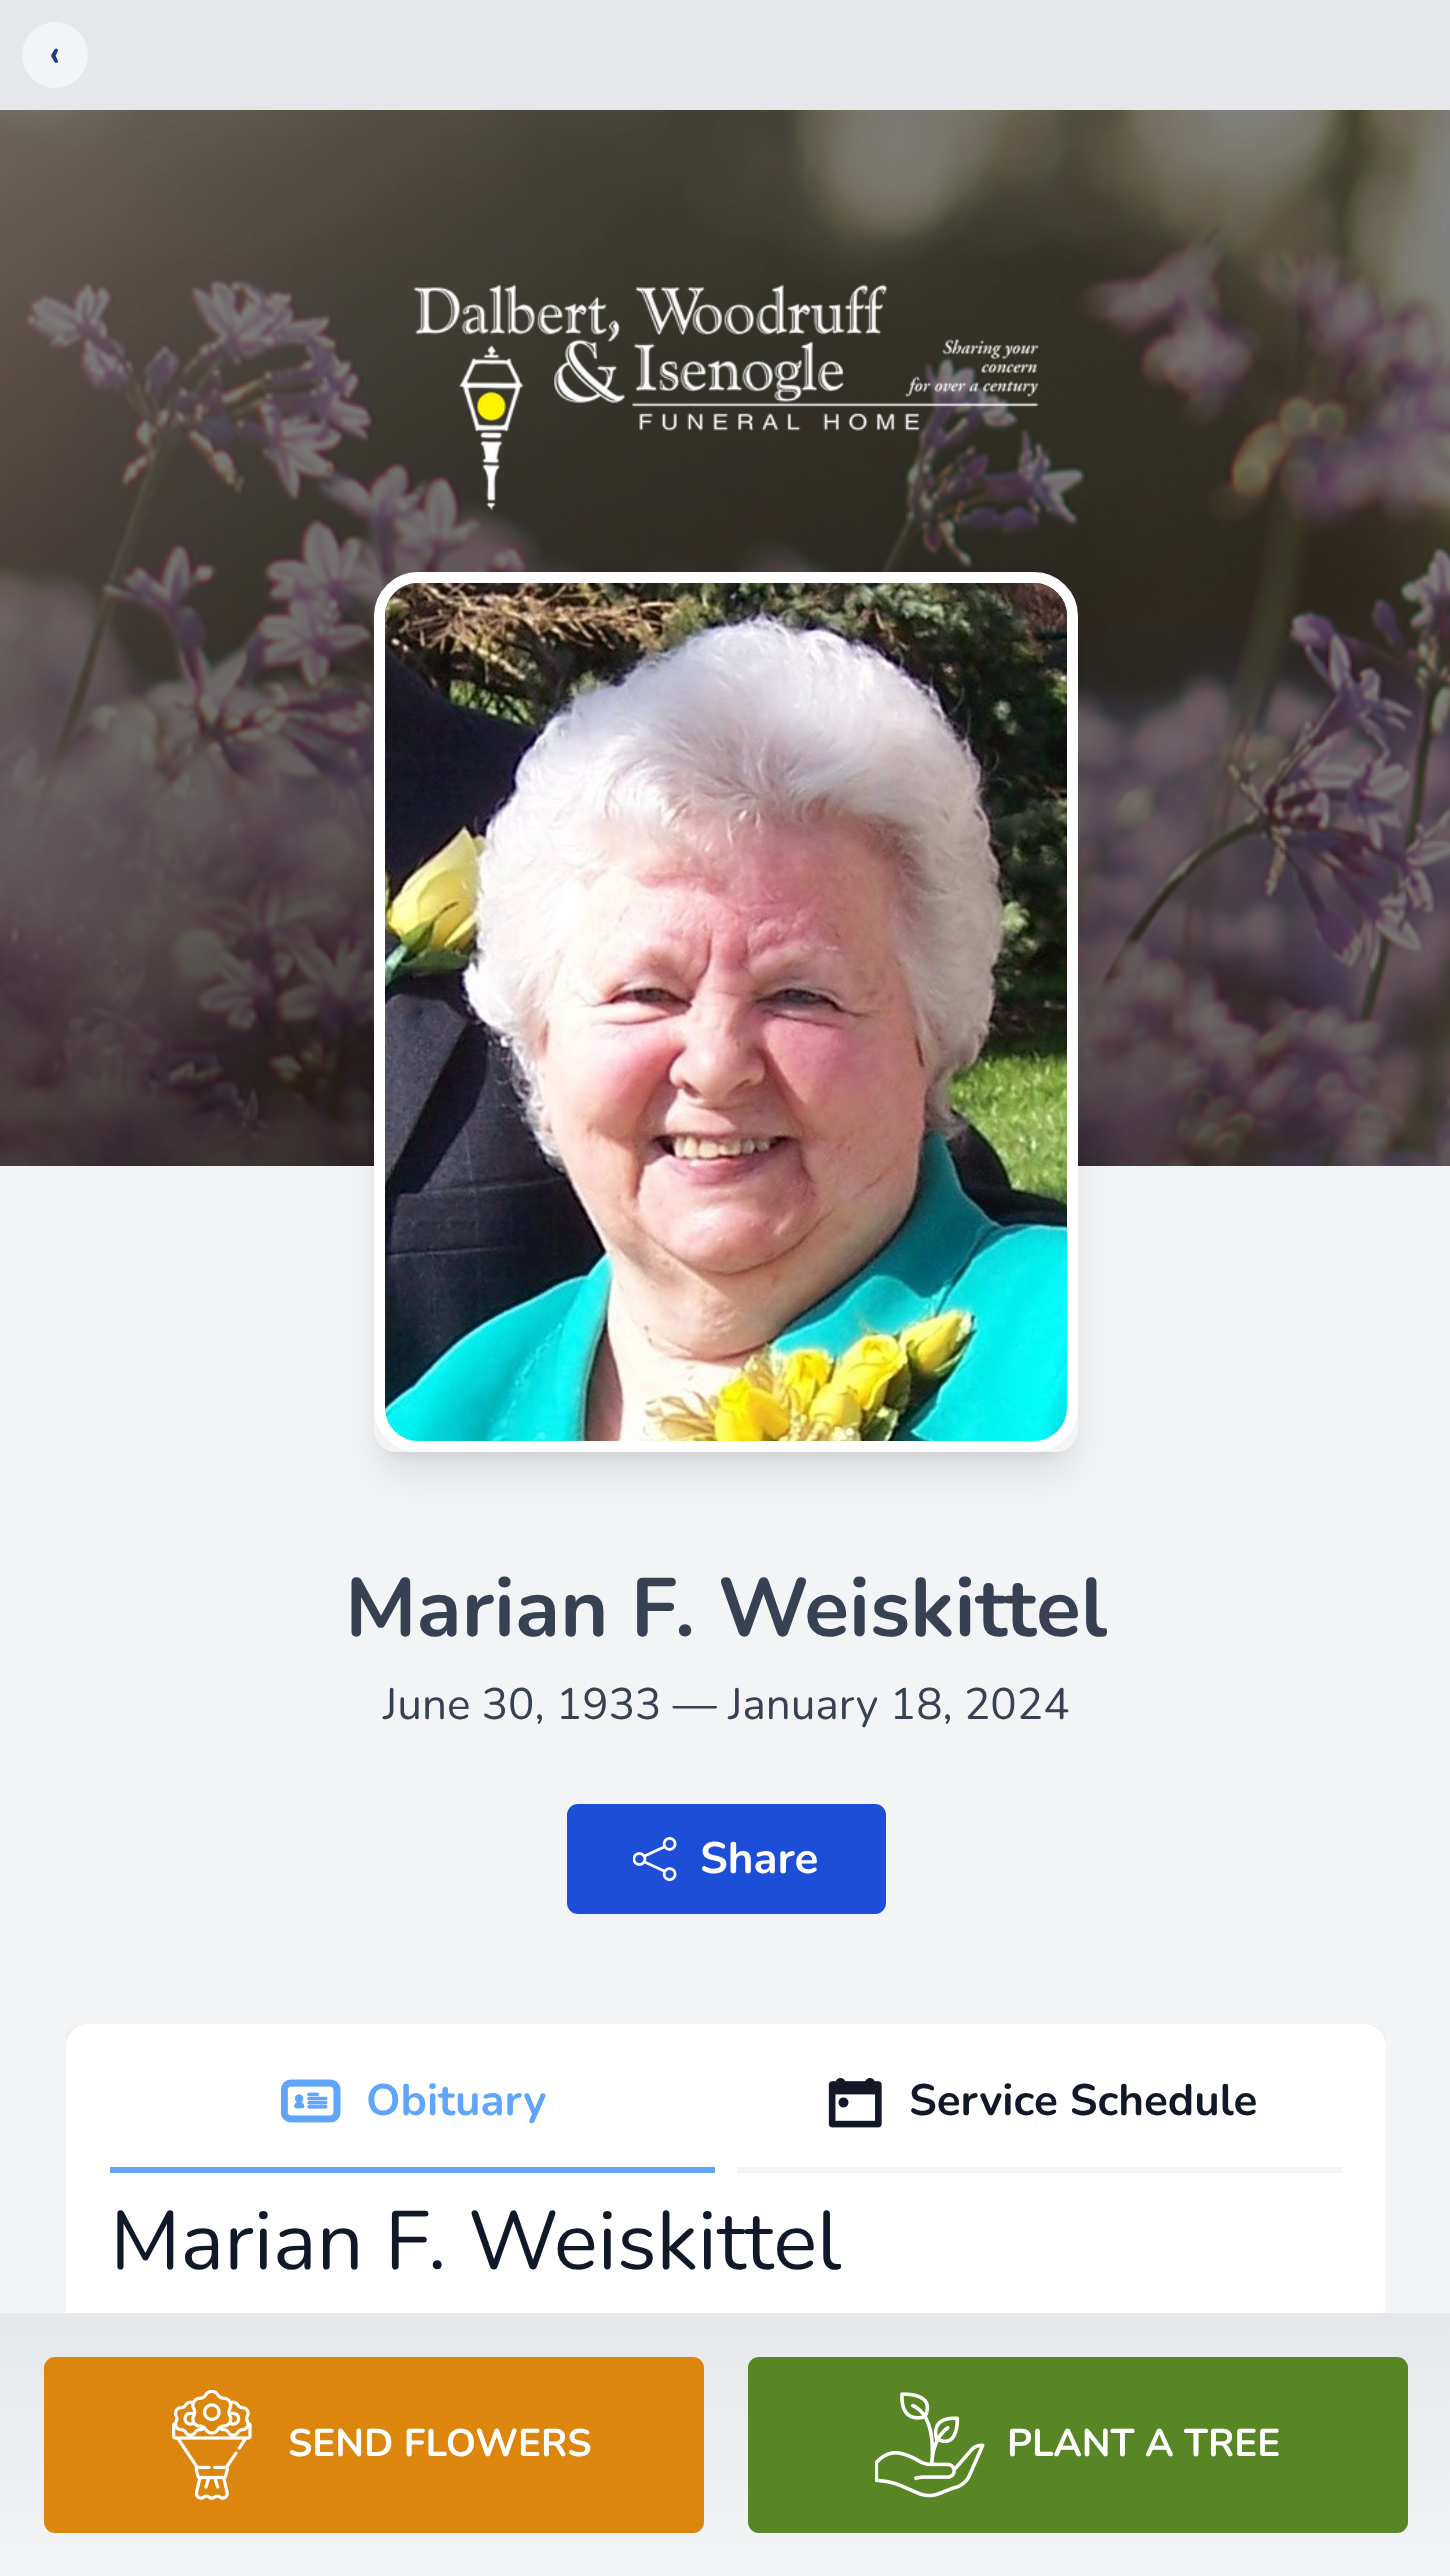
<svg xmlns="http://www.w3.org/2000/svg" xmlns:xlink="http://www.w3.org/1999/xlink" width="1450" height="2576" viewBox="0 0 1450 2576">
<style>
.cls-1{font:bold 38.5px Nunito;fill:#1e3a8a}
.cls-2{font:bold 82.5px Nunito;fill:#374151}
.cls-3{font:44px Nunito;fill:#374151}
.cls-4{font:bold 44px Nunito;fill:#ffffff}
.cls-5{font:bold 44px Nunito;fill:#60a5fa}
.cls-6{font:bold 44px Nunito;fill:#111827}
.cls-7{font:82.5px Nunito;fill:#111827}
.cls-8{font:bold 38.5px Nunito;fill:#ffffff}
</style>
<defs>
<clipPath id="clip1"><path d="M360 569H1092V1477H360ZM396 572H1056C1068 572 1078 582 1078 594V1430C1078 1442 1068 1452 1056 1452H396C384 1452 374 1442 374 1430V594C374 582 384 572 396 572Z" clip-rule="evenodd"/></clipPath>
<clipPath id="clip2"><path d="M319 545H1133V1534H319ZM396 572H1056C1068 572 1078 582 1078 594V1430C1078 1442 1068 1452 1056 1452H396C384 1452 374 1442 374 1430V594C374 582 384 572 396 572Z" clip-rule="evenodd"/></clipPath>
<clipPath id="clip3"><rect x="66" y="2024" width="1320" height="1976"/></clipPath>
<linearGradient id="g1" gradientUnits="userSpaceOnUse" x1="726" y1="2313" x2="726" y2="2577"><stop offset="0" stop-color="#e5e7eb"/><stop offset="1" stop-color="#f3f4f6"/></linearGradient>
</defs>
<rect width="100%" height="100%" fill="#f3f4f6"/>
<rect fill="#e5e7eb" x="0" y="0" width="1450" height="110"/>
<circle fill="#f3f4f6" cx="55" cy="55" r="33"/>
<image xlink:href="image0.png" x="0" y="110" width="1450" height="1056"/>
<image xlink:href="image1.png" x="413" y="284" width="626" height="227"/>
<g clip-path="url(#clip1)">
<rect fill="#000000" fill-opacity="0.1" filter="blur(8px)" x="385" y="594" width="682" height="858" rx="11"/>
</g>
<g clip-path="url(#clip2)">
<rect fill="#000000" fill-opacity="0.1" filter="blur(20.5px)" x="382" y="608" width="688" height="863" rx="14"/>
</g>
<rect fill="none" stroke="#ffffff" stroke-width="11" x="379.5" y="577.5" width="693" height="869" rx="38.5"/>
<image xlink:href="image2.png" x="385" y="583" width="682" height="858"/>
<rect fill="#1d4ed8" x="567" y="1804" width="319" height="110" rx="11"/>
<image xlink:href="image3.png" x="633" y="1837" width="44" height="44"/>
<g clip-path="url(#clip3)">
<rect fill="#000000" fill-opacity="0.1" filter="blur(4px)" x="66" y="2027" width="1320" height="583" rx="22"/>
</g>
<rect fill="#ffffff" x="66" y="2024" width="1320" height="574" rx="22"/>
<rect fill="#60a5fa" x="110" y="2167" width="605" height="6"/>
<image xlink:href="image4.png" x="281" y="2079" width="60" height="44"/>
<rect fill="#f3f4f6" x="737" y="2167" width="605" height="6"/>
<image xlink:href="image5.png" x="828" y="2078" width="54" height="50"/>
<rect fill="url(#g1)" x="0" y="2313" width="1450" height="263"/>
<rect fill="#dc860d" x="44" y="2357" width="660" height="176" rx="11"/>
<image xlink:href="image6.png" x="172" y="2390" width="80" height="110"/>
<rect fill="#588624" x="748" y="2357" width="660" height="176" rx="11"/>
<image xlink:href="image7.png" x="875" y="2392" width="110" height="106"/>
<text class="cls-1" x="49" y="66">‹</text>
<text class="cls-2" x="345" y="1636">Marian F. Weiskittel</text>
<text class="cls-3" x="383" y="1719">June 30, 1933 — January 18, 2024</text>
<text class="cls-4" x="700" y="1873">Share</text>
<text class="cls-5" x="366" y="2115">Obituary</text>
<text class="cls-6" x="909" y="2115">Service Schedule</text>
<text class="cls-7" x="110" y="2269">Marian F. Weiskittel</text>
<text class="cls-8" x="288" y="2456">SEND FLOWERS</text>
<text class="cls-8" x="1007" y="2456">PLANT A TREE</text>
</svg>
